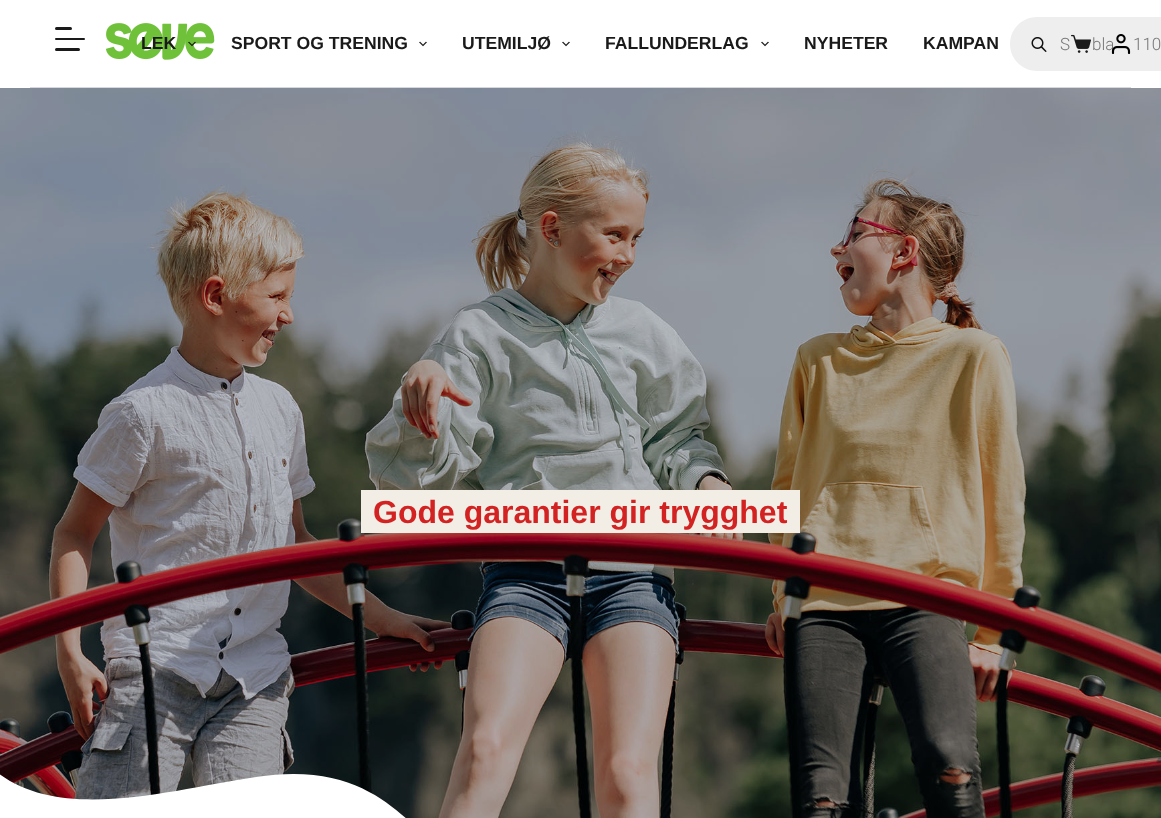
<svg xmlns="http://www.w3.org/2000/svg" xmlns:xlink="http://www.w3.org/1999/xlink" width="1161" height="818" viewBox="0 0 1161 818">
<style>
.cls-1{font:bold 17.6px Liberation Sans;fill:#1a1a1a}
.cls-2{font:300 17px Roboto;fill:#777777}
.cls-3{font:bold 32px Liberation Sans;fill:#d32222}
</style>
<rect width="100%" height="100%" fill="#ffffff"/>
<rect fill="#d5d8dc" x="30" y="87" width="1101" height="1"/>
<rect fill="#1a1a1a" x="55" y="27" width="17" height="3" rx="1.5"/>
<rect fill="#1a1a1a" x="55" y="38" width="30" height="2" rx="1"/>
<rect fill="#1a1a1a" x="55" y="48" width="25" height="3" rx="1.5"/>
<image xlink:href="image0.png" x="106" y="23" width="109" height="37"/>
<image xlink:href="image1.png" x="188" y="41" width="8" height="6"/>
<image xlink:href="image2.png" x="419" y="41" width="8" height="6"/>
<image xlink:href="image2.png" x="562" y="41" width="8" height="6"/>
<image xlink:href="image2.png" x="761" y="41" width="8" height="6"/>
<path fill="#eeeeee" d="M1037 17H1161V71H1037C1022 71 1010 59 1010 44C1010 29 1022 17 1037 17Z"/>
<image xlink:href="image3.png" x="1071" y="34" width="20" height="19"/>
<image xlink:href="image5.png" x="1031" y="37" width="16" height="15"/>
<image xlink:href="image6.png" x="0" y="88" width="1161" height="730"/>
<rect fill="#f2eee5" x="361" y="490" width="439" height="43"/>
<path fill="#ffffff" d="M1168 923V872C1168 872 1109 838 993 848C879 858 813 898 746 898C678 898 658 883 619 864C564 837 498 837 485 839C471 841 436 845 408 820C380 795 339 764 256 777C173 789 58 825-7 769V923Z"/>
<text class="cls-1" x="141" y="49">LEK</text>
<text class="cls-1" x="231" y="49">SPORT OG TRENING</text>
<text class="cls-1" x="462" y="49">UTEMILJØ</text>
<text class="cls-1" x="605" y="49">FALLUNDERLAG</text>
<text class="cls-1" x="804" y="49">NYHETER</text>
<text class="cls-1" x="923" y="49">KAMPAN</text>
<text class="cls-2" x="1060" y="50">S</text>
<text class="cls-2" x="1092" y="50">bla</text>
<image xlink:href="image4.png" x="1111" y="34" width="20" height="20"/>
<text class="cls-2" x="1133" y="50">110</text>
<text class="cls-3" x="373" y="523">Gode garantier gir trygghet</text>
</svg>
